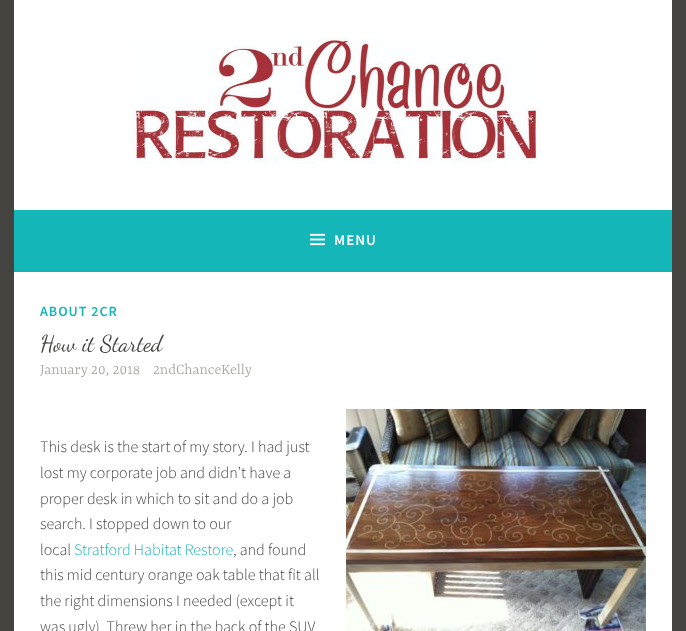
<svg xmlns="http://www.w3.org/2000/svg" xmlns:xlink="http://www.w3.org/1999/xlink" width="686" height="631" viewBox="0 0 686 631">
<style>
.cls-1{font:600 15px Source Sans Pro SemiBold;letter-spacing:1px;fill:#ffffff}
.cls-2{font:600 14px Source Sans Pro SemiBold;letter-spacing:1px;fill:#15b6b8}
.cls-3{font:23px Dancing Script;fill:#444340}
.cls-4{font:300 16px Yrsa;fill:#a8a6a1}
.cls-5{font:300 16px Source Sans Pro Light;fill:#444340}
.cls-6{font:300 16px Source Sans Pro Light;fill:#15b6b8}
</style>
<rect width="100%" height="100%" fill="#444340"/>
<rect fill="#ffffff" x="14" y="0" width="658" height="210"/>
<image xlink:href="image0.png" x="132" y="38" width="408" height="126"/>
<rect fill="#15b6b8" x="14" y="210" width="658" height="60"/>
<rect fill="#14b1b2" x="14" y="270" width="658" height="2"/>
<image xlink:href="image1.png" x="310" y="233" width="15" height="13"/>
<rect fill="#ffffff" x="14" y="272" width="658" height="359"/>
<image xlink:href="image2.png" x="346" y="409" width="300" height="222"/>
<text class="cls-1" x="334" y="245">MENU</text>
<text class="cls-2" x="40" y="316">ABOUT 2CR</text>
<text class="cls-3" x="40" y="351">How it Started</text>
<text class="cls-4" x="40" y="374">January 20, 2018</text>
<text class="cls-4" x="153" y="374">2ndChanceKelly</text>
<text class="cls-5"><tspan x="40" y="452">This desk is the start of my story. I had just</tspan><tspan x="40" y="478">lost my corporate job and didn’t have a</tspan><tspan x="40" y="504">proper desk in which to sit and do a job</tspan><tspan x="40" y="529">search. I stopped down to our</tspan><tspan x="40" y="555">local</tspan></text>
<text class="cls-6" x="74" y="555">Stratford Habitat Restore</text>
<text class="cls-5" x="233" y="555">, and found</text>
<text class="cls-5"><tspan x="40" y="580">this mid century orange oak table that fit all</tspan><tspan x="40" y="606">the right dimensions I needed (except it</tspan><tspan x="40" y="632">was ugly). Threw her in the back of the SUV</tspan></text>
</svg>
